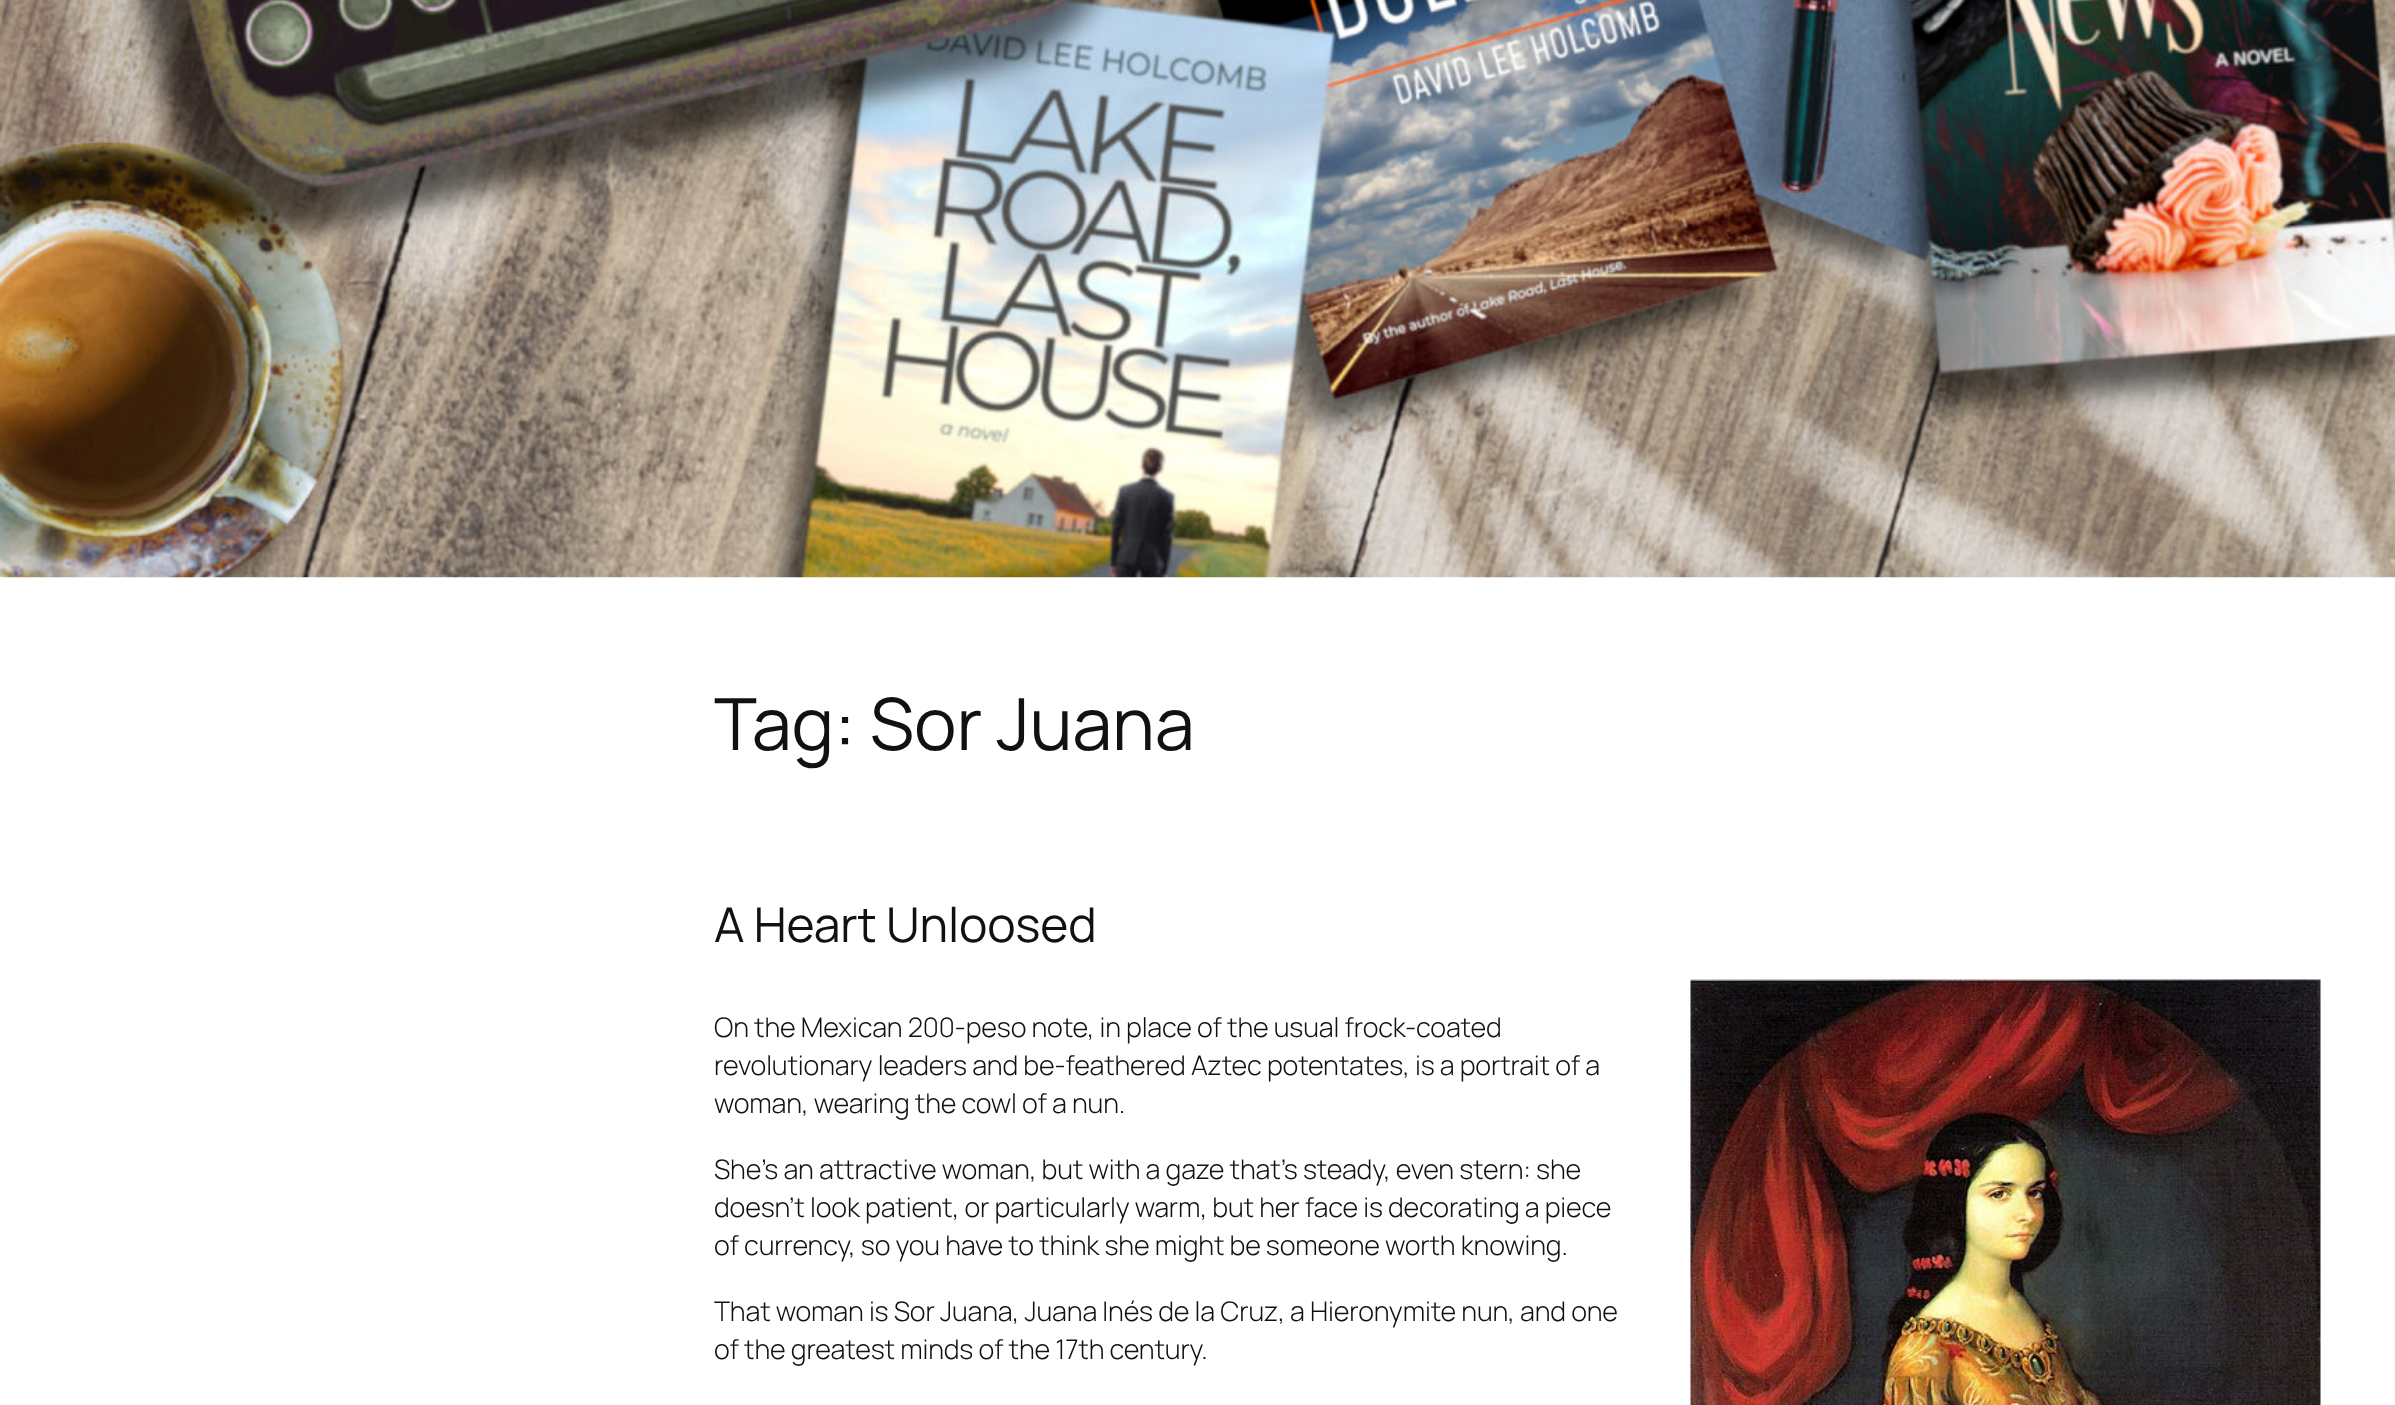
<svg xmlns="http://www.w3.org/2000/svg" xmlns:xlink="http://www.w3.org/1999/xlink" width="2395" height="1405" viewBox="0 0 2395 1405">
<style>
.cls-1{font:72px Manrope;letter-spacing:-0.15px;fill:#111111}
.cls-2{font:48px Manrope;letter-spacing:-0.15px;fill:#111111}
.cls-3{font:300 27px Manrope;letter-spacing:-0.15px;fill:#111111}
</style>
<rect width="100%" height="100%" fill="#ffffff"/>
<image xlink:href="image0.png" x="0" y="0" width="2395" height="578"/>
<image xlink:href="image1.png" x="1690" y="979" width="631" height="426"/>
<text class="cls-1" x="714" y="750">Tag: Sor Juana</text>
<text class="cls-2" x="714" y="942">A Heart Unloosed</text>
<text class="cls-3"><tspan x="714" y="1037">On the Mexican 200-peso note, in place of the usual frock-coated</tspan><tspan x="714" y="1075">revolutionary leaders and be-feathered Aztec potentates, is a portrait of a</tspan><tspan x="714" y="1113">woman, wearing the cowl of a nun.</tspan></text>
<text class="cls-3"><tspan x="714" y="1179">She’s an attractive woman, but with a gaze that’s steady, even stern: she</tspan><tspan x="714" y="1217">doesn’t look patient, or particularly warm, but her face is decorating a piece</tspan><tspan x="714" y="1255">of currency, so you have to think she might be someone worth knowing.</tspan></text>
<text class="cls-3"><tspan x="714" y="1321">That woman is Sor Juana, Juana Inés de la Cruz, a Hieronymite nun, and one</tspan><tspan x="714" y="1359">of the greatest minds of the 17th century.</tspan></text>
</svg>
